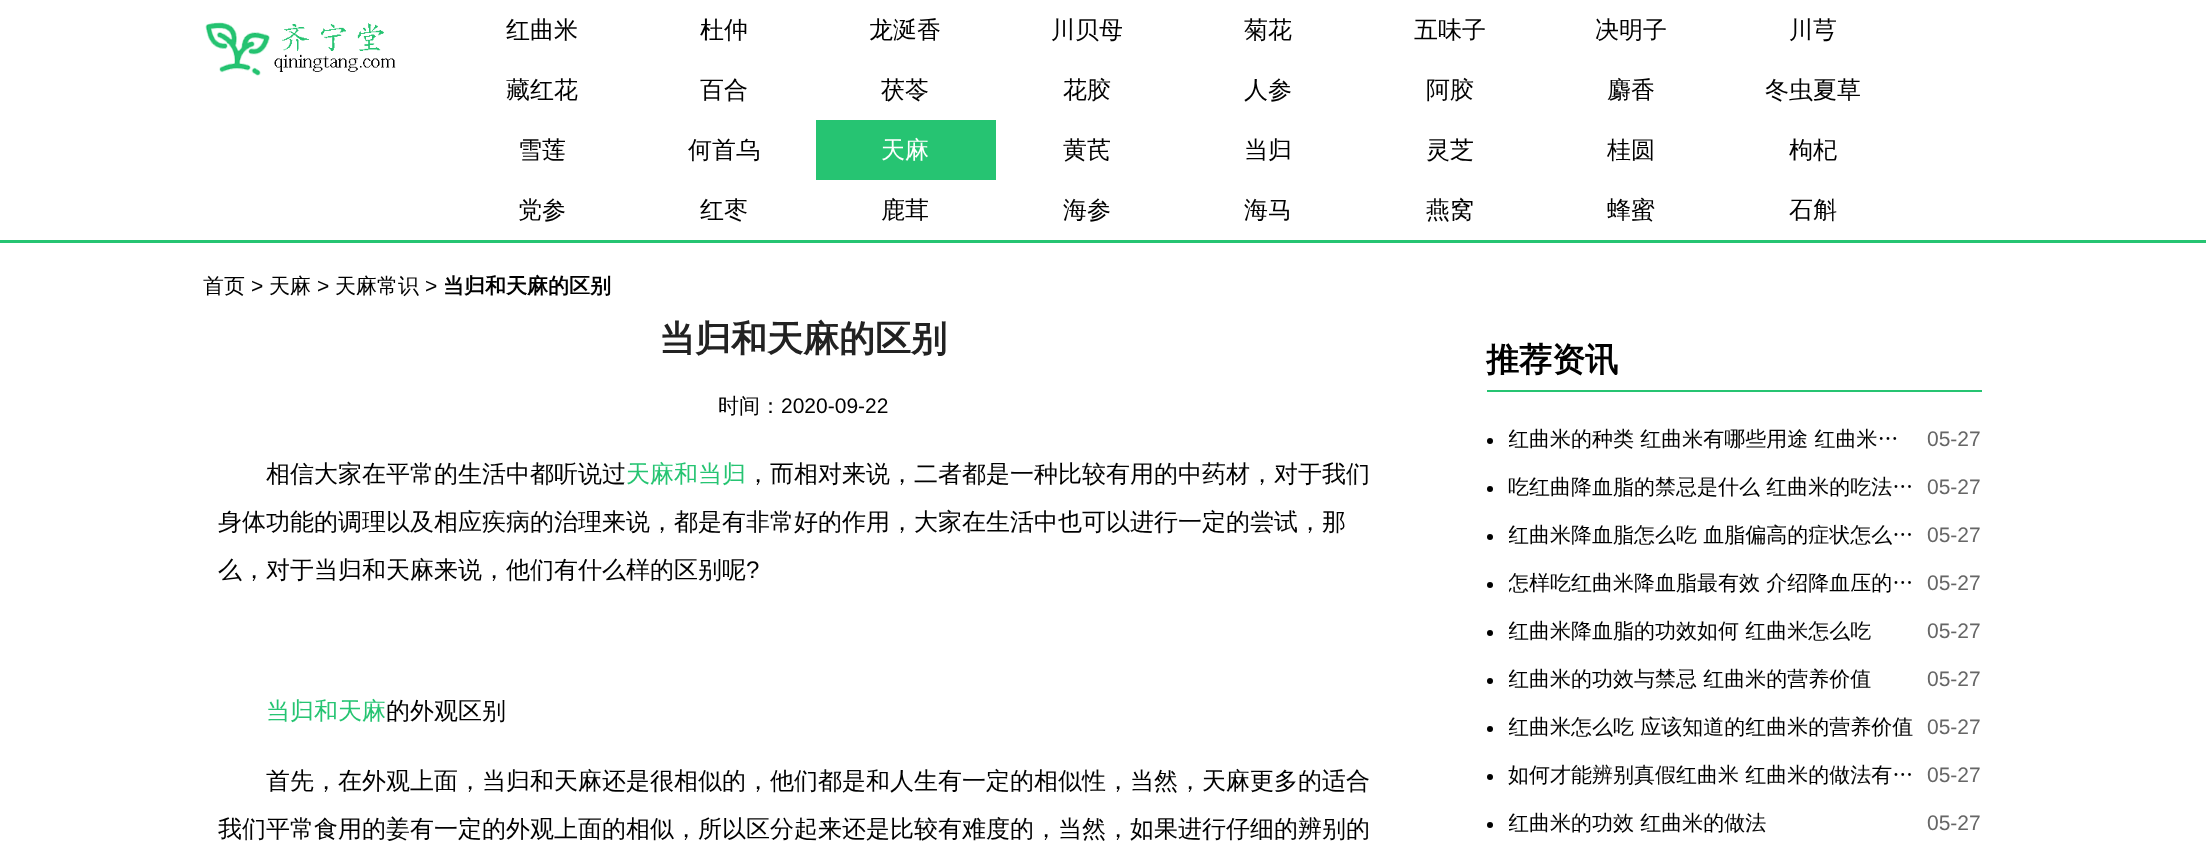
<svg xmlns="http://www.w3.org/2000/svg" xmlns:xlink="http://www.w3.org/1999/xlink" width="2206" height="844" viewBox="0 0 2206 844">
<style>
.cls-1{font:500 24px WenQuanYi Zen Hei;fill:#000000}
.cls-2{font:500 24px WenQuanYi Zen Hei;fill:#ffffff}
.cls-3{font:500 21px WenQuanYi Zen Hei;fill:#000000}
.cls-4{font:21px Liberation Sans;fill:#000000}
.cls-5{font:bold 21px WenQuanYi Zen Hei;fill:#000000}
.cls-6{font:bold 36px WenQuanYi Zen Hei;fill:#222222}
.cls-7{font:500 24px WenQuanYi Zen Hei;fill:#26c472}
.cls-8{font:24px Liberation Sans;fill:#000000}
.cls-9{font:bold 33px WenQuanYi Zen Hei;fill:#000000}
.cls-10{font:21px Liberation Sans;fill:#666666}
</style>
<defs>
<clipPath id="clip1"><rect x="1509" y="414" width="405" height="48"/></clipPath>
<clipPath id="clip2"><rect x="1509" y="510" width="405" height="48"/></clipPath>
<clipPath id="clip3"><rect x="1509" y="558" width="405" height="48"/></clipPath>
<clipPath id="clip4"><rect x="1509" y="606" width="405" height="48"/></clipPath>
<clipPath id="clip5"><rect x="1509" y="654" width="405" height="48"/></clipPath>
<clipPath id="clip6"><rect x="1509" y="702" width="405" height="48"/></clipPath>
<clipPath id="clip7"><rect x="1509" y="798" width="405" height="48"/></clipPath>
</defs>
<rect width="100%" height="100%" fill="#ffffff"/>
<rect fill="#26c472" x="0" y="240" width="2206" height="3"/>
<image xlink:href="image0.png" x="205" y="22" width="191" height="54"/>
<rect fill="#26c472" x="816" y="120" width="180" height="60"/>
<rect fill="#26c472" x="1487" y="390" width="495" height="2"/>
<circle fill="#000000" cx="1490" cy="441" r="3"/>
<circle fill="#000000" cx="1490" cy="489" r="3"/>
<circle fill="#000000" cx="1490" cy="537" r="3"/>
<circle fill="#000000" cx="1490" cy="585" r="3"/>
<circle fill="#000000" cx="1490" cy="633" r="3"/>
<circle fill="#000000" cx="1490" cy="681" r="3"/>
<circle fill="#000000" cx="1490" cy="729" r="3"/>
<circle fill="#000000" cx="1490" cy="777" r="3"/>
<circle fill="#000000" cx="1490" cy="825" r="3"/>
<text class="cls-1" x="506" y="38">红曲米</text>
<text class="cls-1" x="700" y="38">杜仲</text>
<text class="cls-1" x="869" y="38">龙涎香</text>
<text class="cls-1" x="1051" y="38">川贝母</text>
<text class="cls-1" x="1244" y="38">菊花</text>
<text class="cls-1" x="1414" y="38">五味子</text>
<text class="cls-1" x="1595" y="38">决明子</text>
<text class="cls-1" x="1789" y="38">川芎</text>
<text class="cls-1" x="506" y="98">藏红花</text>
<text class="cls-1" x="700" y="98">百合</text>
<text class="cls-1" x="881" y="98">茯苓</text>
<text class="cls-1" x="1063" y="98">花胶</text>
<text class="cls-1" x="1244" y="98">人参</text>
<text class="cls-1" x="1426" y="98">阿胶</text>
<text class="cls-1" x="1607" y="98">麝香</text>
<text class="cls-1" x="1765" y="98">冬虫夏草</text>
<text class="cls-1" x="518" y="158">雪莲</text>
<text class="cls-1" x="688" y="158">何首乌</text>
<text class="cls-2" x="881" y="158">天麻</text>
<text class="cls-1" x="1063" y="158">黄芪</text>
<text class="cls-1" x="1244" y="158">当归</text>
<text class="cls-1" x="1426" y="158">灵芝</text>
<text class="cls-1" x="1607" y="158">桂圆</text>
<text class="cls-1" x="1789" y="158">枸杞</text>
<text class="cls-1" x="518" y="218">党参</text>
<text class="cls-1" x="700" y="218">红枣</text>
<text class="cls-1" x="881" y="218">鹿茸</text>
<text class="cls-1" x="1063" y="218">海参</text>
<text class="cls-1" x="1244" y="218">海马</text>
<text class="cls-1" x="1426" y="218">燕窝</text>
<text class="cls-1" x="1607" y="218">蜂蜜</text>
<text class="cls-1" x="1789" y="218">石斛</text>
<text class="cls-3" x="203" y="293">首页</text>
<text class="cls-4" x="251" y="293">&gt;</text>
<text class="cls-3" x="269" y="293">天麻</text>
<text class="cls-4" x="317" y="293">&gt;</text>
<text class="cls-3" x="335" y="293">天麻常识</text>
<text class="cls-4" x="425" y="293">&gt;</text>
<text class="cls-5" x="443" y="293">当归和天麻的区别</text>
<text class="cls-6" x="659" y="351">当归和天麻的区别</text>
<text class="cls-3" x="718" y="413">时间：</text>
<text class="cls-4" x="781" y="413">2020-09-22</text>
<text class="cls-1" x="266" y="482">相信大家在平常的生活中都听说过</text>
<text class="cls-7" x="626" y="482">天麻和当归</text>
<text class="cls-1" x="746" y="482">，而相对来说，二者都是一种比较有用的中药材，对于我们</text>
<text class="cls-1" x="218" y="530">身体功能的调理以及相应疾病的治理来说，都是有非常好的作用，大家在生活中也可以进行一定的尝试，那</text>
<text class="cls-1" x="218" y="578">么，对于当归和天麻来说，他们有什么样的区别呢</text>
<text class="cls-8" x="746" y="578">?</text>
<text class="cls-7" x="266" y="719">当归和天麻</text>
<text class="cls-1" x="386" y="719">的外观区别</text>
<text class="cls-1" x="266" y="789">首先，在外观上面，当归和天麻还是很相似的，他们都是和人生有一定的相似性，当然，天麻更多的适合</text>
<text class="cls-1" x="218" y="837">我们平常食用的姜有一定的外观上面的相似，所以区分起来还是比较有难度的，当然，如果进行仔细的辨别的</text>
<text class="cls-9" x="1486" y="371">推荐资讯</text>
<g clip-path="url(#clip1)">
<text class="cls-3" x="1508" y="446">红曲米的种类 红曲米有哪些用途 红曲米…</text>
</g>
<text class="cls-10" x="1927" y="446">05-27</text>
<text class="cls-3" x="1508" y="494">吃红曲降血脂的禁忌是什么 红曲米的吃法…</text>
<text class="cls-10" x="1927" y="494">05-27</text>
<g clip-path="url(#clip2)">
<text class="cls-3" x="1508" y="542">红曲米降血脂怎么吃 血脂偏高的症状怎么…</text>
</g>
<text class="cls-10" x="1927" y="542">05-27</text>
<g clip-path="url(#clip3)">
<text class="cls-3" x="1508" y="590">怎样吃红曲米降血脂最有效 介绍降血压的…</text>
</g>
<text class="cls-10" x="1927" y="590">05-27</text>
<g clip-path="url(#clip4)">
<text class="cls-3" x="1508" y="638">红曲米降血脂的功效如何 红曲米怎么吃</text>
</g>
<text class="cls-10" x="1927" y="638">05-27</text>
<g clip-path="url(#clip5)">
<text class="cls-3" x="1508" y="686">红曲米的功效与禁忌 红曲米的营养价值</text>
</g>
<text class="cls-10" x="1927" y="686">05-27</text>
<g clip-path="url(#clip6)">
<text class="cls-3" x="1508" y="734">红曲米怎么吃 应该知道的红曲米的营养价值</text>
</g>
<text class="cls-10" x="1927" y="734">05-27</text>
<text class="cls-3" x="1508" y="782">如何才能辨别真假红曲米 红曲米的做法有…</text>
<text class="cls-10" x="1927" y="782">05-27</text>
<g clip-path="url(#clip7)">
<text class="cls-3" x="1508" y="830">红曲米的功效 红曲米的做法</text>
</g>
<text class="cls-10" x="1927" y="830">05-27</text>
</svg>
